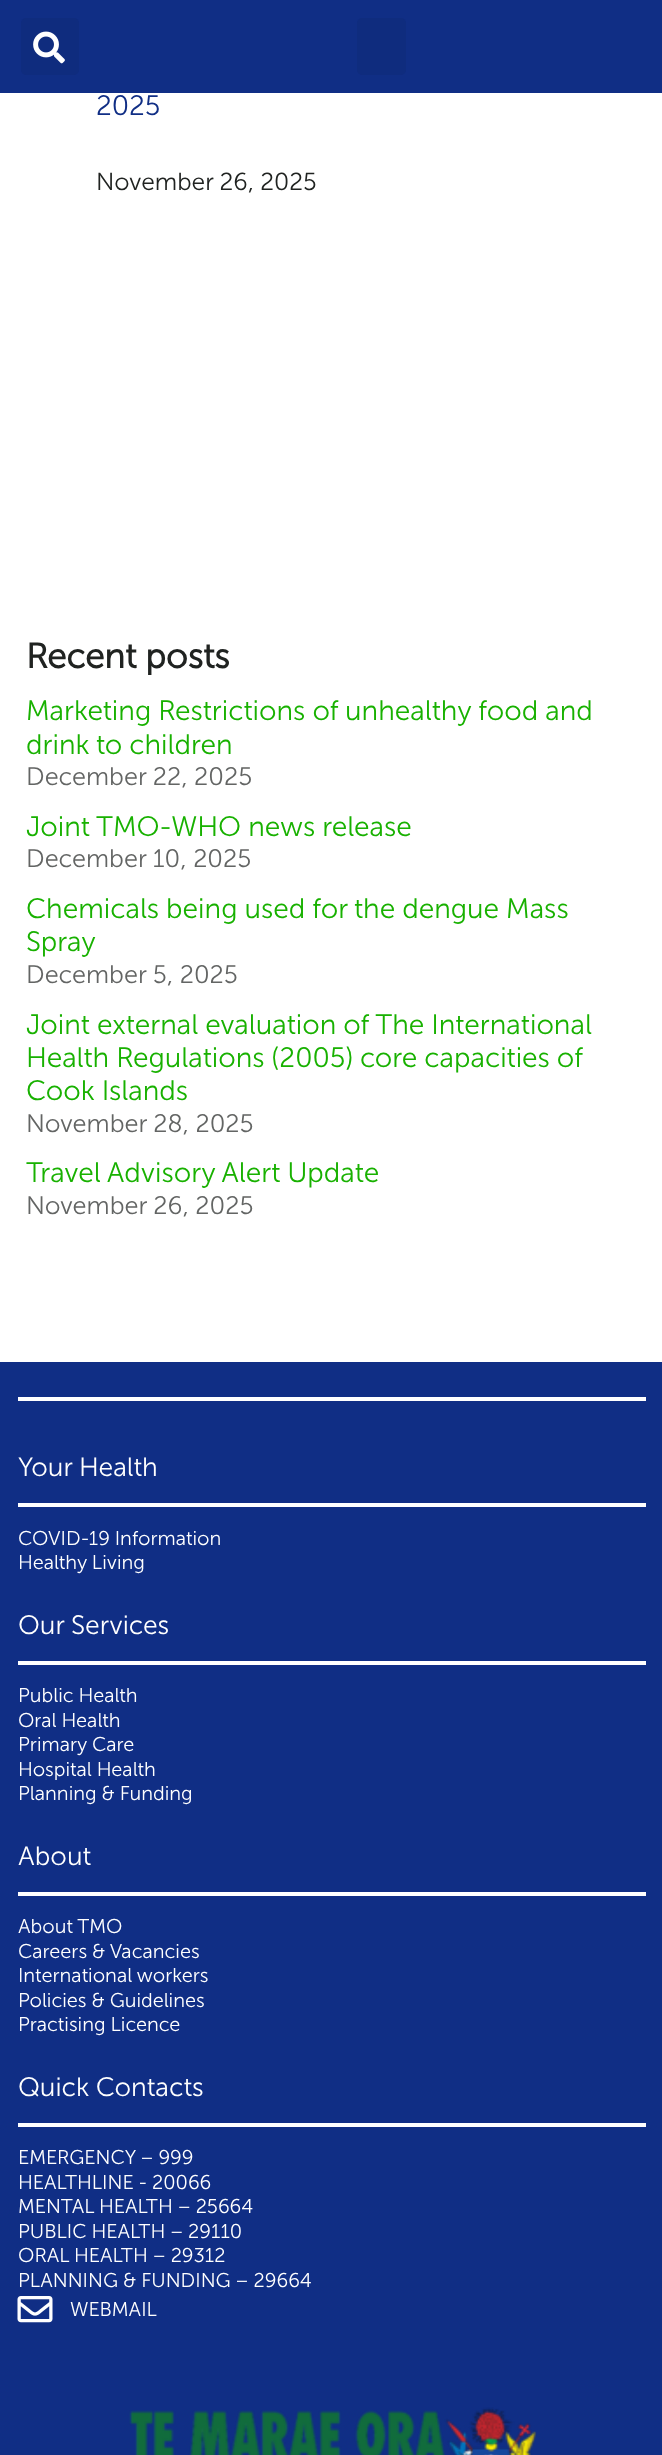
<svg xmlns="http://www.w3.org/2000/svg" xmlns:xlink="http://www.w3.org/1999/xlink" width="662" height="2455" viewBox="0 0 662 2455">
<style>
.cls-1{font:300 28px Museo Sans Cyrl;fill:#102e85}
.cls-2{font:300 24.5px Museo Sans Cyrl;fill:#202321}
.cls-3{font:bold 35px Museo Sans Cyrl;fill:#202321}
.cls-4{font:300 28px Museo Sans Cyrl;fill:#18b100}
.cls-5{font:300 25.25px Museo Sans Cyrl;fill:#636564}
.cls-6{font:300 26.5px Museo Sans Cyrl;fill:#ffffff}
.cls-7{font:300 19.9px Museo Sans Cyrl;fill:#ffffff}
</style>
<rect width="100%" height="100%" fill="#ffffff"/>
<rect fill="#102e85" x="0" y="0" width="662" height="93"/>
<rect fill="#0f2c7e" x="21" y="18" width="58" height="57" rx="5"/>
<image xlink:href="image0.png" x="33" y="31" width="32" height="33"/>
<rect fill="#0f2c7e" x="357" y="18" width="49" height="57" rx="5"/>
<rect fill="#102e85" x="0" y="1362" width="662" height="1093"/>
<rect fill="#ffffff" x="18" y="1397" width="628" height="4"/>
<rect fill="#ffffff" x="18" y="1503" width="628" height="4"/>
<rect fill="#ffffff" x="18" y="1661" width="628" height="4"/>
<rect fill="#ffffff" x="18" y="1892" width="628" height="4"/>
<rect fill="#ffffff" x="18" y="2123" width="628" height="4"/>
<image xlink:href="image1.png" x="17" y="2296" width="36" height="27"/>
<image xlink:href="image2.png" x="129" y="2407" width="408" height="48"/>
<text class="cls-1" x="96" y="115">2025</text>
<text class="cls-2" x="96" y="190">November 26, 2025</text>
<text class="cls-3" x="26" y="668">Recent posts</text>
<text class="cls-4"><tspan x="26" y="720">Marketing Restrictions of unhealthy food and</tspan><tspan x="26" y="754">drink to children</tspan></text>
<text class="cls-5" x="26" y="785">December 22, 2025</text>
<text class="cls-4" x="26" y="836">Joint TMO-WHO news release</text>
<text class="cls-5" x="26" y="867">December 10, 2025</text>
<text class="cls-4"><tspan x="26" y="918">Chemicals being used for the dengue Mass</tspan><tspan x="26" y="951">Spray</tspan></text>
<text class="cls-5" x="26" y="983">December 5, 2025</text>
<text class="cls-4"><tspan x="26" y="1034">Joint external evaluation of The International</tspan><tspan x="26" y="1067">Health Regulations (2005) core capacities of</tspan><tspan x="26" y="1100">Cook Islands</tspan></text>
<text class="cls-5" x="26" y="1132">November 28, 2025</text>
<text class="cls-4" x="26" y="1182">Travel Advisory Alert Update</text>
<text class="cls-5" x="26" y="1214">November 26, 2025</text>
<text class="cls-6" x="18" y="1476">Your Health</text>
<text class="cls-7"><tspan x="18" y="1545">COVID-19 Information</tspan><tspan x="18" y="1569">Healthy Living</tspan></text>
<text class="cls-6" x="18" y="1634">Our Services</text>
<text class="cls-7"><tspan x="18" y="1702">Public Health</tspan><tspan x="18" y="1727">Oral Health</tspan><tspan x="18" y="1751">Primary Care</tspan><tspan x="18" y="1776">Hospital Health</tspan><tspan x="18" y="1800">Planning &amp; Funding</tspan></text>
<text class="cls-6" x="18" y="1865">About</text>
<text class="cls-7"><tspan x="18" y="1933">About TMO</tspan><tspan x="18" y="1958">Careers &amp; Vacancies</tspan><tspan x="18" y="1982">International workers</tspan><tspan x="18" y="2007">Policies &amp; Guidelines</tspan><tspan x="18" y="2031">Practising Licence</tspan></text>
<text class="cls-6" x="18" y="2096">Quick Contacts</text>
<text class="cls-7"><tspan x="18" y="2164">EMERGENCY – 999</tspan><tspan x="18" y="2189">HEALTHLINE - 20066</tspan><tspan x="18" y="2213">MENTAL HEALTH – 25664</tspan><tspan x="18" y="2238">PUBLIC HEALTH – 29110</tspan><tspan x="18" y="2262">ORAL HEALTH – 29312</tspan><tspan x="18" y="2287">PLANNING &amp; FUNDING – 29664</tspan></text>
<text class="cls-7" x="70" y="2316">WEBMAIL</text>
</svg>
